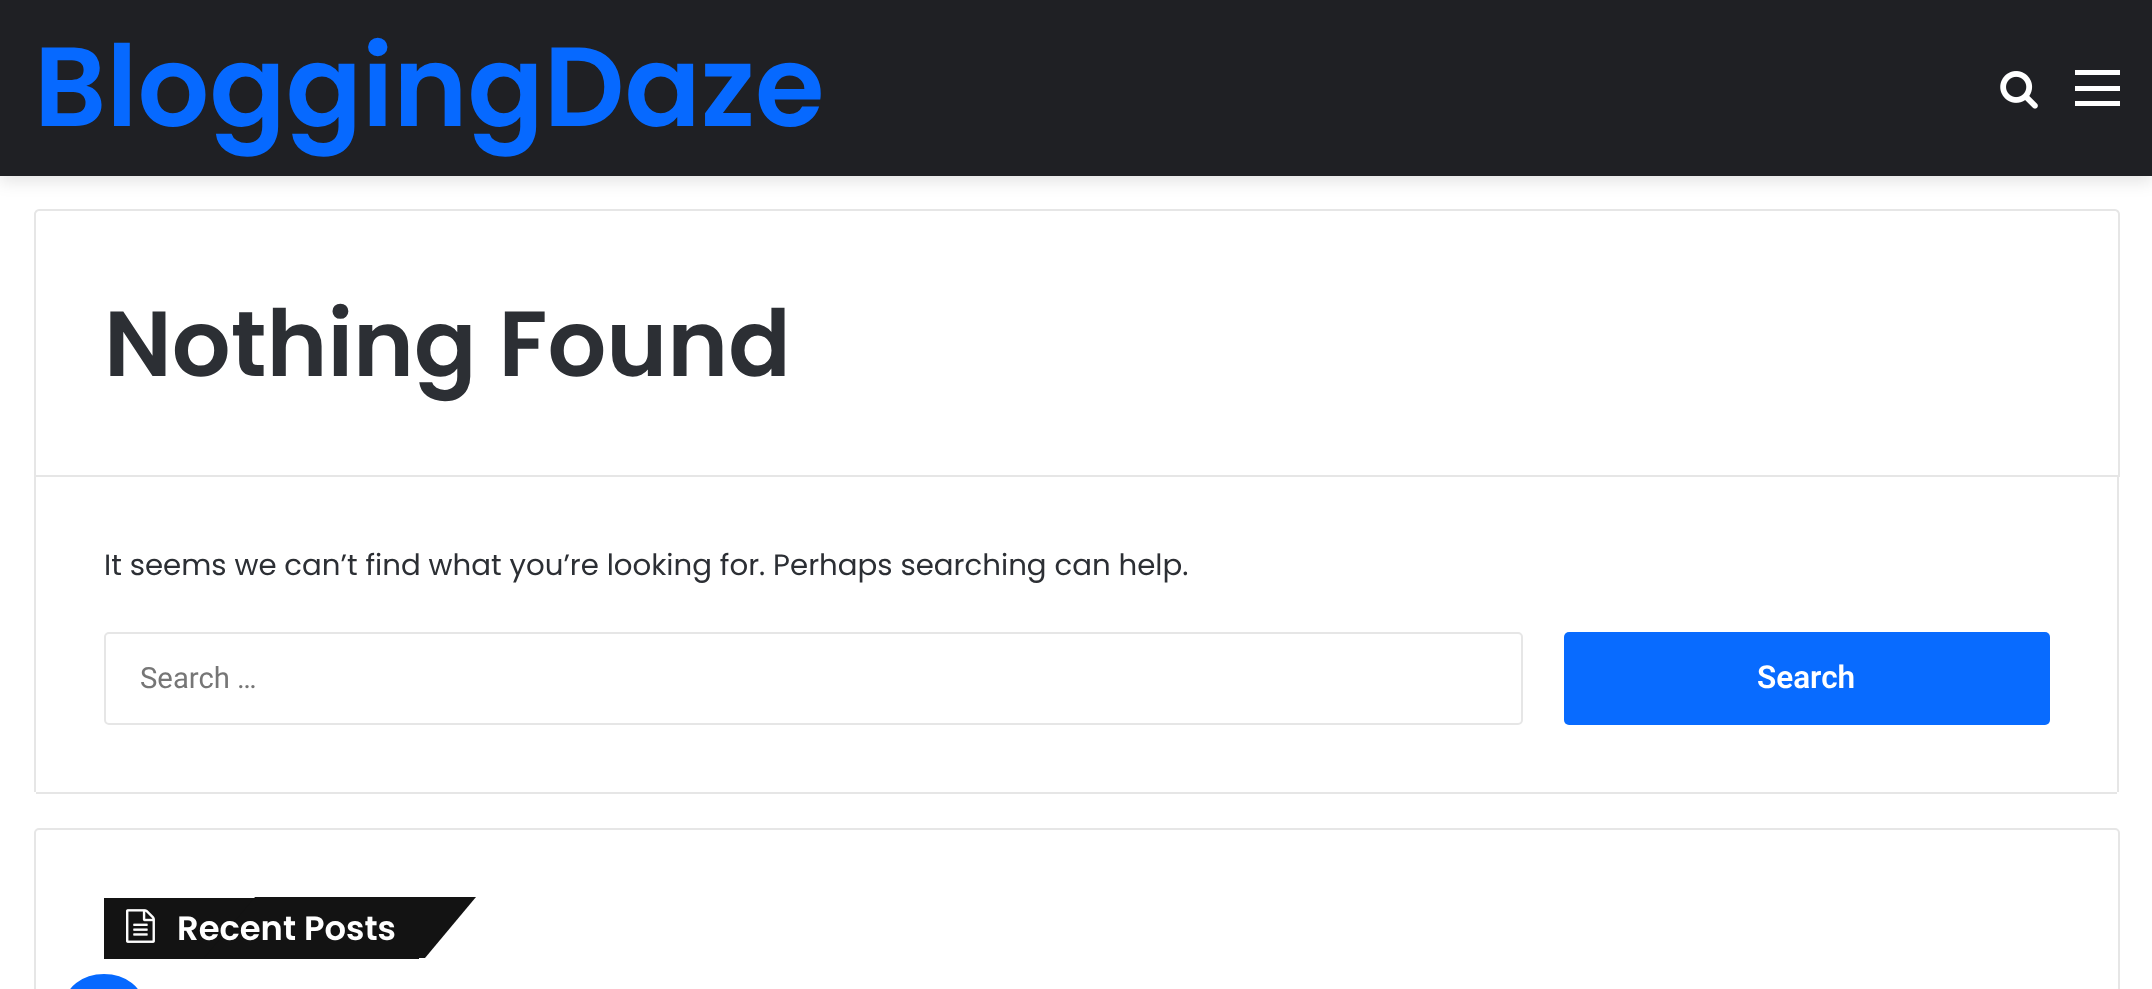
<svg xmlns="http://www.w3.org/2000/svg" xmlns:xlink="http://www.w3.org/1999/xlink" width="2152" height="989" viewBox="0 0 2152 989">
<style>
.cls-1{font:600 112.5px Poppins;fill:#0669ff}
.cls-2{font:600 92.25px Poppins;fill:#2c2f34}
.cls-3{font:29.25px Poppins;fill:#2c2f34}
.cls-4{font:29.25px Roboto;fill:#767676}
.cls-5{font:600 31.5px Roboto;fill:#ffffff}
.cls-6{font:600 33.75px Poppins;fill:#ffffff}
</style>
<rect width="100%" height="100%" fill="#ffffff"/>
<rect fill="#000000" fill-opacity="0.1" filter="blur(8px)" x="0" y="7" width="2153" height="175"/>
<rect fill="#1f2024" x="0" y="0" width="2152" height="176"/>
<image xlink:href="image0.png" x="2000" y="71" width="38" height="38"/>
<rect fill="#ffffff" x="2075" y="86" width="45" height="5"/>
<rect fill="#ffffff" x="2075" y="70" width="45" height="5"/>
<rect fill="#ffffff" x="2075" y="101" width="45" height="5"/>
<path fill="none" stroke="#e6e6e6" stroke-width="2" d="M39 210H2115C2117 210 2119 212 2119 214V476H35V214C35 212 37 210 39 210Z"/>
<rect fill="#e6e6e6" x="2117" y="477" width="2" height="315"/>
<rect fill="#e6e6e6" x="36" y="792" width="2081" height="2"/>
<rect fill="#e6e6e6" x="34" y="477" width="2" height="315"/>
<rect fill="none" stroke="#e6e6e6" stroke-width="2" x="105" y="633" width="1417" height="91" rx="4"/>
<rect fill="#086bff" x="1564" y="632" width="486" height="93" rx="5"/>
<rect fill="none" stroke="#e6e6e6" stroke-width="2" x="35" y="829" width="2084" height="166" rx="4"/>
<rect fill="#131313" x="104" y="898" width="315" height="61"/>
<path fill="#131313" d="M255 897H476L425 958H204Z"/>
<image xlink:href="image1.png" x="126" y="909" width="29" height="34"/>
<rect fill="#0669ff" stroke="#ffffff" stroke-width="6" x="62" y="971" width="84" height="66" rx="42"/>
<text class="cls-1" x="34" y="126">BloggingDaze</text>
<text class="cls-2" x="104" y="376">Nothing Found</text>
<text class="cls-3" x="104" y="575">It seems we can’t find what you’re looking for. Perhaps searching can help.</text>
<text class="cls-4" x="140" y="688">Search …</text>
<text class="cls-5" x="1757" y="688">Search</text>
<text class="cls-6" x="177" y="940">Recent Posts</text>
</svg>
